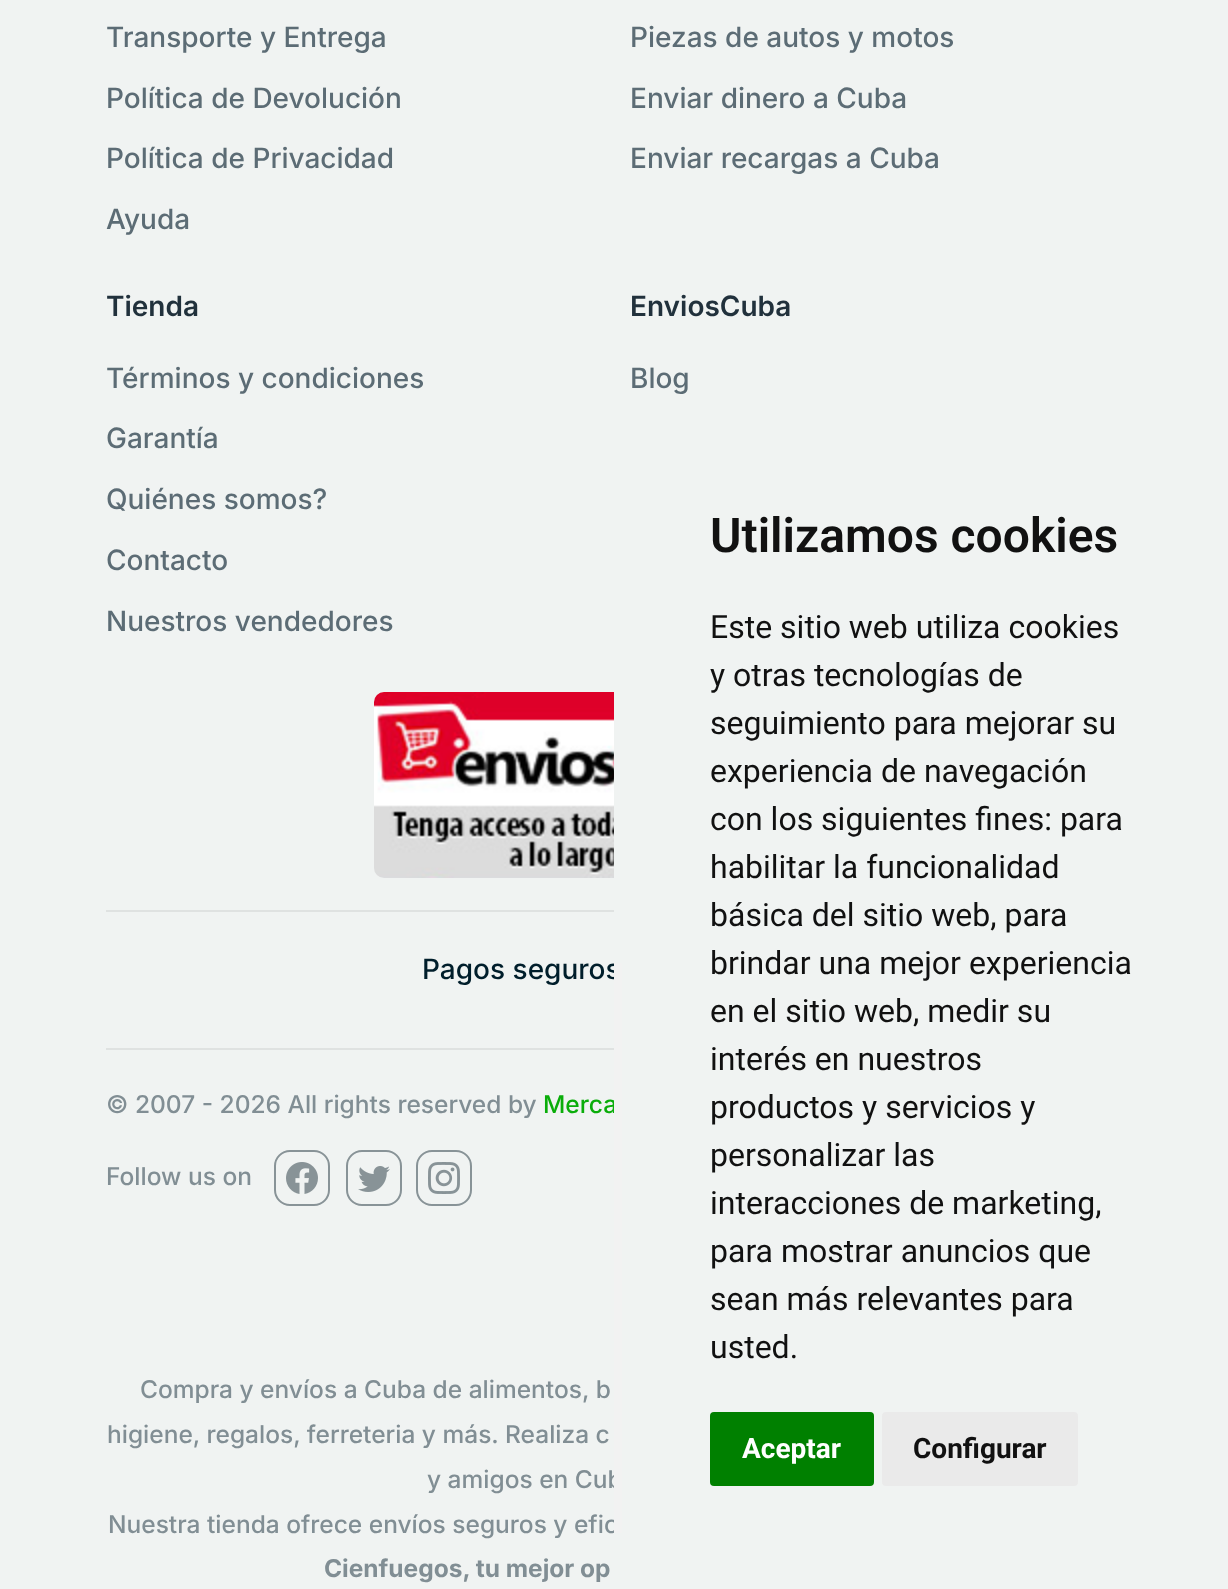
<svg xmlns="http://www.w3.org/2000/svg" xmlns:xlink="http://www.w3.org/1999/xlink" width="1228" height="1589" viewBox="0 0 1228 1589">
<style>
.cls-1{font:500 28px Inter;fill:#5c6c75}
.cls-2{font:600 28px Inter;fill:#21313c}
.cls-3{font:500 28px Inter;fill:#001e2b}
.cls-4{font:500 24.5px Inter;fill:#818e94}
.cls-5{font:500 24.5px Inter;fill:#0aad0a}
.cls-6{font:bold 24.5px Inter;fill:#818e94}
.cls-7{font:600 48px Roboto;fill:#111111}
.cls-8{font:32px Roboto;fill:#111111}
.cls-9{font:bold 28px Roboto;fill:#ffffff}
.cls-10{font:bold 28px Roboto;fill:#111111}
</style>
<rect width="100%" height="100%" fill="#f0f3f2"/>
<image xlink:href="image0.png" x="374" y="692" width="240" height="186"/>
<rect fill="#dfe2e1" x="106" y="910" width="508" height="2"/>
<rect fill="#dfe2e1" x="106" y="1048" width="508" height="2"/>
<rect fill="none" stroke="#889397" stroke-width="2" x="275" y="1151" width="54" height="54" rx="15"/>
<image xlink:href="image1.png" x="286" y="1162" width="32" height="32"/>
<rect fill="none" stroke="#889397" stroke-width="2" x="347" y="1151" width="54" height="54" rx="15"/>
<image xlink:href="image2.png" x="358" y="1166" width="32" height="26"/>
<rect fill="none" stroke="#889397" stroke-width="2" x="417" y="1151" width="54" height="54" rx="15"/>
<image xlink:href="image3.png" x="428" y="1162" width="32" height="32"/>
<rect fill="#008000" x="710" y="1412" width="164" height="74" rx="4"/>
<rect fill="#eaeaea" x="882" y="1412" width="196" height="74" rx="4"/>
<text class="cls-1" x="106" y="47">Transporte y Entrega</text>
<text class="cls-1" x="106" y="108">Política de Devolución</text>
<text class="cls-1" x="106" y="168">Política de Privacidad</text>
<text class="cls-1" x="106" y="229">Ayuda</text>
<text class="cls-1" x="630" y="47">Piezas de autos y motos</text>
<text class="cls-1" x="630" y="108">Enviar dinero a Cuba</text>
<text class="cls-1" x="630" y="168">Enviar recargas a Cuba</text>
<text class="cls-2" x="106" y="316">Tienda</text>
<text class="cls-1" x="106" y="388">Términos y condiciones</text>
<text class="cls-1" x="106" y="448">Garantía</text>
<text class="cls-1" x="106" y="509">Quiénes somos?</text>
<text class="cls-1" x="106" y="570">Contacto</text>
<text class="cls-1" x="106" y="631">Nuestros vendedores</text>
<text class="cls-2" x="630" y="316">EnviosCuba</text>
<text class="cls-1" x="630" y="388">Blog</text>
<text class="cls-3" x="422" y="979">Pagos seguros</text>
<text class="cls-4" x="106" y="1113">© 2007 - 2026 All rights reserved by</text>
<text class="cls-5" x="543" y="1113">Merca</text>
<text class="cls-4" x="106" y="1185">Follow us on</text>
<text class="cls-4" x="140" y="1398">Compra y envíos a Cuba de alimentos, b</text>
<text class="cls-4" x="107" y="1443">higiene, regalos, ferreteria y más. Realiza c</text>
<text class="cls-4" x="427" y="1488">y amigos en Cub</text>
<text class="cls-4" x="108" y="1533">Nuestra tienda ofrece envíos seguros y efic</text>
<text class="cls-6" x="324" y="1577">Cienfuegos, tu mejor op</text>
<rect fill="#f2f2f2" x="614" y="963" width="8" height="570"/>
<text class="cls-7" x="710" y="552">Utilizamos cookies</text>
<text class="cls-8"><tspan x="710" y="638">Este sitio web utiliza cookies</tspan><tspan x="710" y="686">y otras tecnologías de</tspan><tspan x="710" y="734">seguimiento para mejorar su</tspan><tspan x="710" y="782">experiencia de navegación</tspan><tspan x="710" y="830">con los siguientes fines: para</tspan><tspan x="710" y="878">habilitar la funcionalidad</tspan><tspan x="710" y="926">básica del sitio web, para</tspan><tspan x="710" y="974">brindar una mejor experiencia</tspan><tspan x="710" y="1022">en el sitio web, medir su</tspan><tspan x="710" y="1070">interés en nuestros</tspan><tspan x="710" y="1118">productos y servicios y</tspan><tspan x="710" y="1166">personalizar las</tspan><tspan x="710" y="1214">interacciones de marketing,</tspan><tspan x="710" y="1262">para mostrar anuncios que</tspan><tspan x="710" y="1310">sean más relevantes para</tspan><tspan x="710" y="1358">usted.</tspan></text>
<text class="cls-9" x="742" y="1458">Aceptar</text>
<text class="cls-10" x="913" y="1458">Configurar</text>
</svg>
